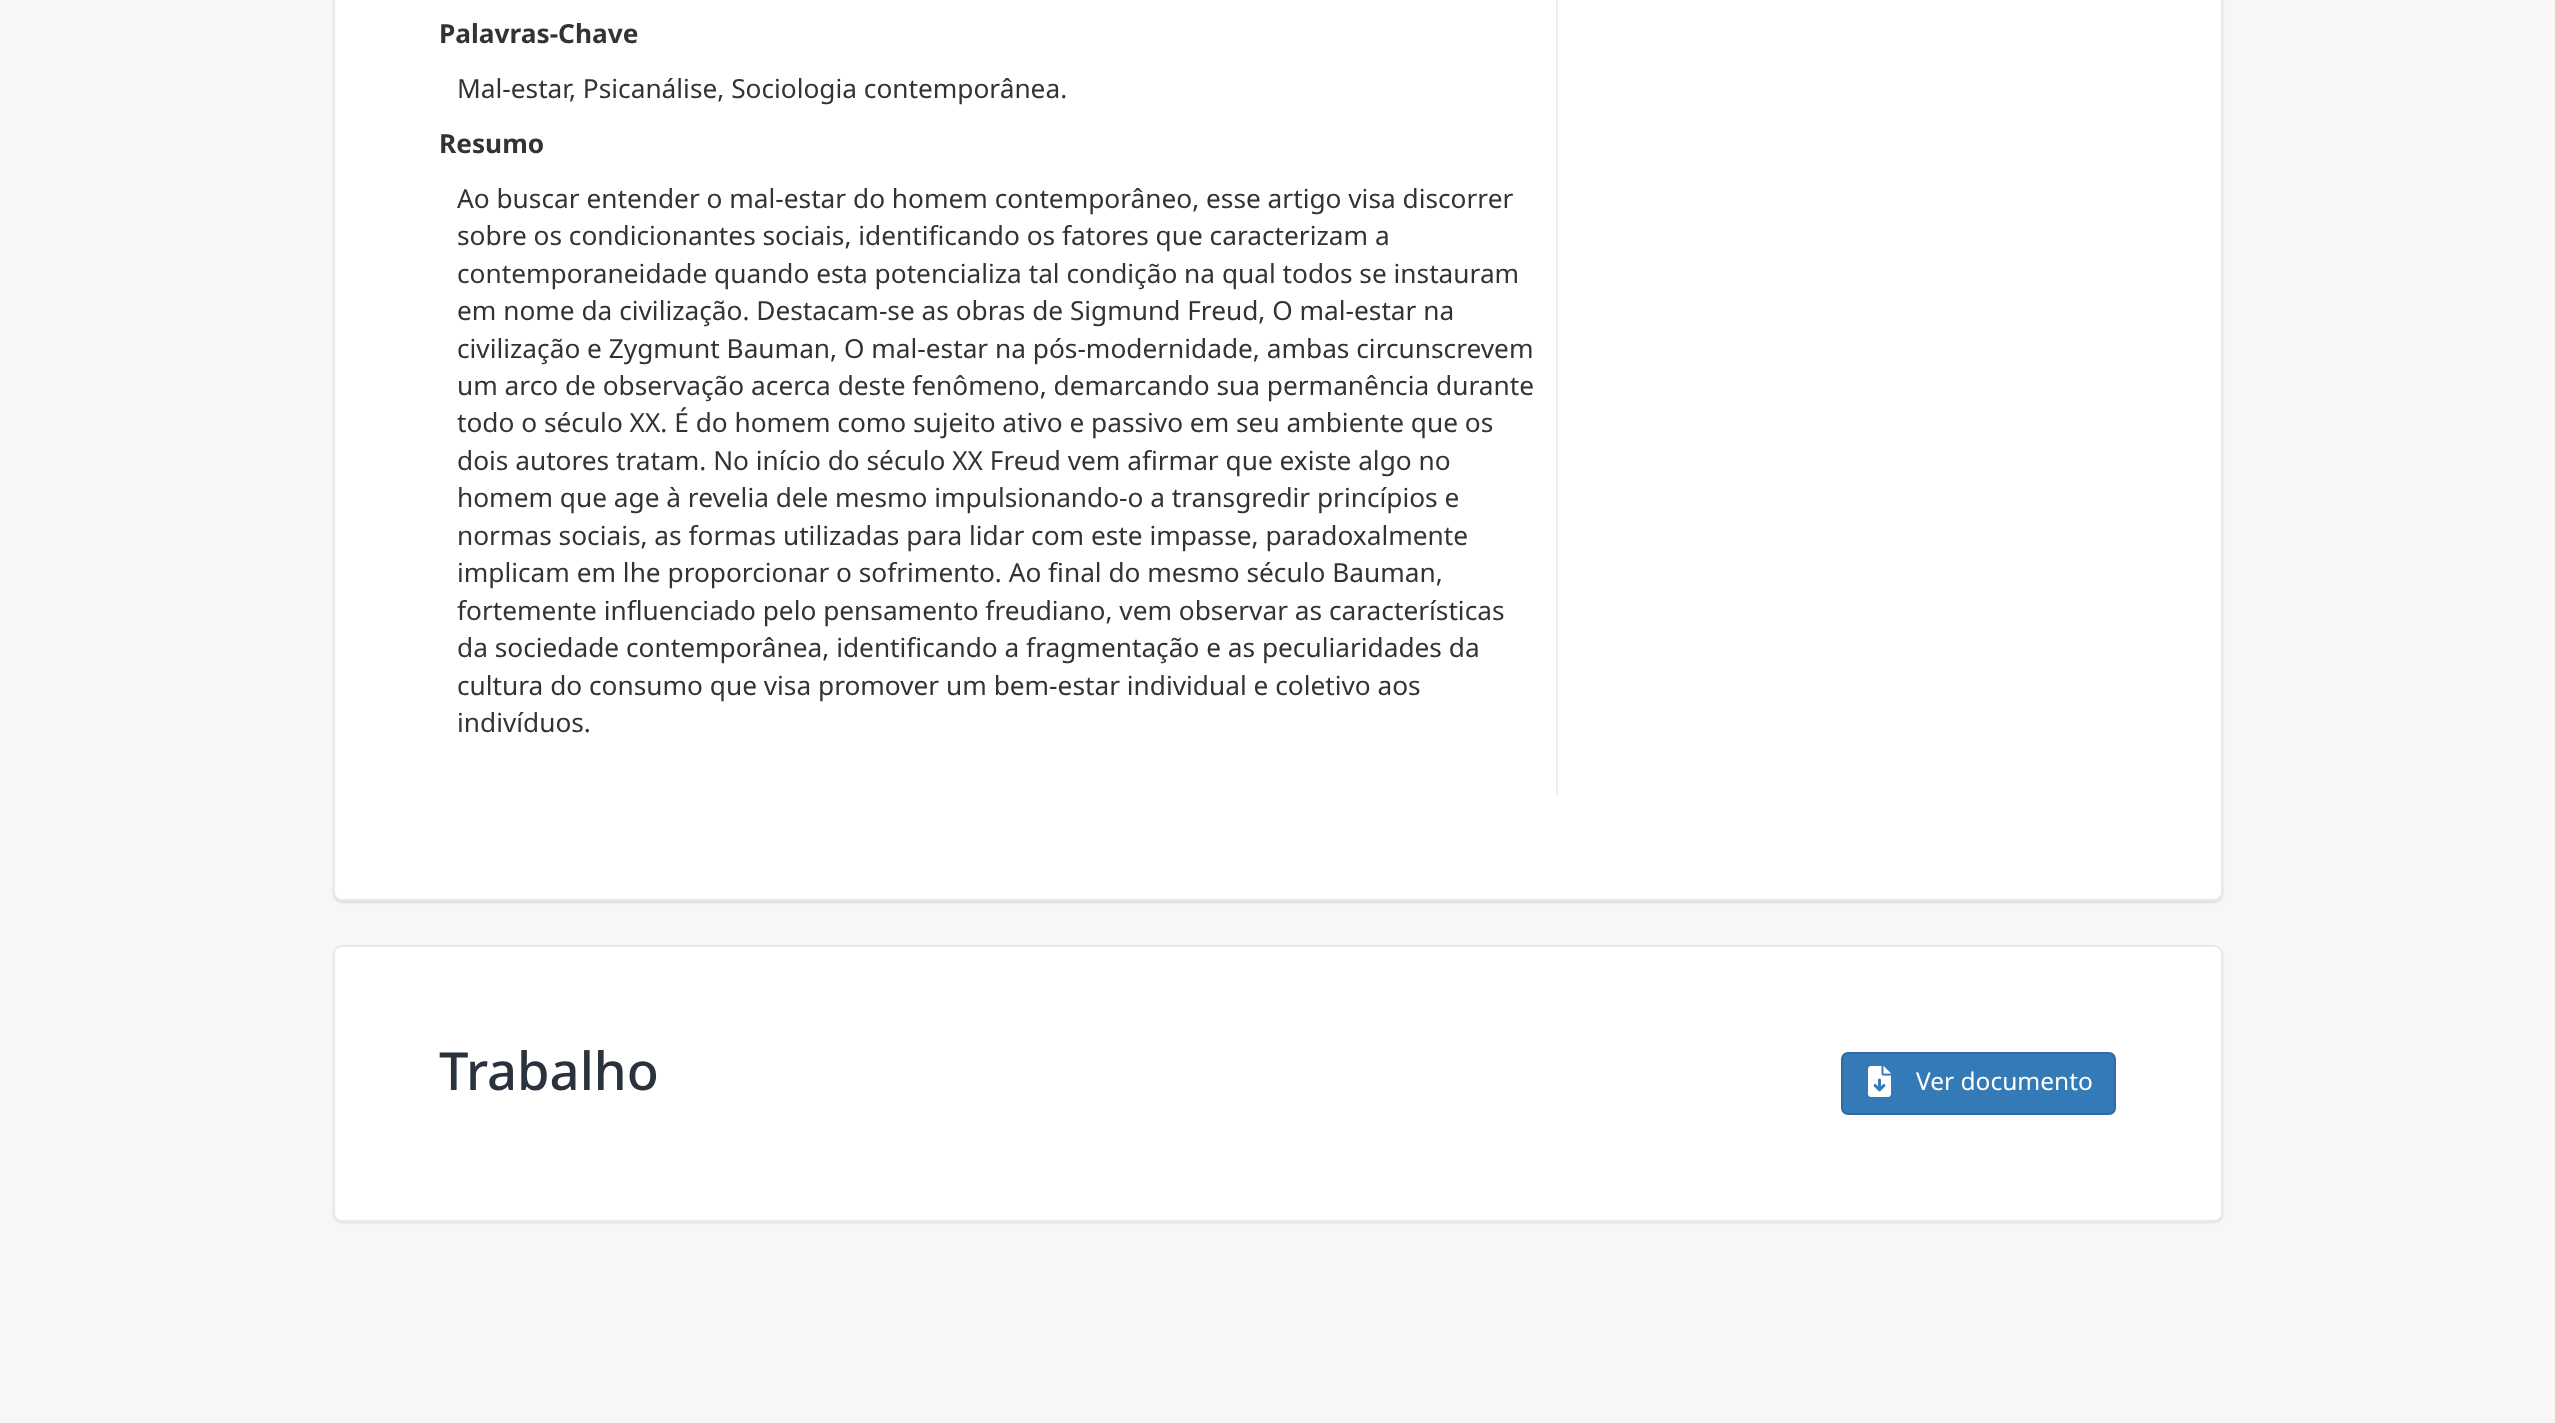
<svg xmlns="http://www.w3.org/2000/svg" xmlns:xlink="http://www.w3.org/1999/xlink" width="2555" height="1423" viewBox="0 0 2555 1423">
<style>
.cls-1{font:bold 26.25px Noto Sans;fill:#333333}
.cls-2{font:26.25px Noto Sans;fill:#333333}
.cls-3{font:500 52.5px Noto Sans;fill:#29323d}
.cls-4{font:24.5px Noto Sans;fill:#ffffff}
</style>
<rect width="100%" height="100%" fill="#f7f7f7"/>
<rect fill="#000000" fill-opacity="0.1" filter="blur(1px)" x="333" y="-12" width="1890" height="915" rx="9"/>
<rect fill="#ffffff" stroke="#e4eaf1" stroke-width="2" x="334" y="-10" width="1888" height="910" rx="8"/>
<rect fill="#ebeef1" x="1556" y="0" width="2" height="795"/>
<rect fill="#000000" fill-opacity="0.1" filter="blur(1px)" x="333" y="947" width="1890" height="276" rx="9"/>
<rect fill="#ffffff" stroke="#e4eaf1" stroke-width="2" x="334" y="946" width="1888" height="275" rx="8"/>
<rect fill="#337ab7" stroke="#2e6da4" stroke-width="2" x="1842" y="1053" width="273" height="61" rx="6"/>
<image xlink:href="image0.png" x="1868" y="1066" width="23" height="31"/>
<text class="cls-1" x="439" y="43">Palavras-Chave</text>
<text class="cls-2" x="457" y="98">Mal-estar, Psicanálise, Sociologia contemporânea.</text>
<text class="cls-1" x="439" y="153">Resumo</text>
<text class="cls-2"><tspan x="457" y="208">Ao buscar entender o mal-estar do homem contemporâneo, esse artigo visa discorrer</tspan><tspan x="457" y="245">sobre os condicionantes sociais, identificando os fatores que caracterizam a</tspan><tspan x="457" y="283">contemporaneidade quando esta potencializa tal condição na qual todos se instauram</tspan><tspan x="457" y="320">em nome da civilização. Destacam-se as obras de Sigmund Freud, O mal-estar na</tspan><tspan x="457" y="358">civilização e Zygmunt Bauman, O mal-estar na pós-modernidade, ambas circunscrevem</tspan><tspan x="457" y="395">um arco de observação acerca deste fenômeno, demarcando sua permanência durante</tspan><tspan x="457" y="432">todo o século XX. É do homem como sujeito ativo e passivo em seu ambiente que os</tspan><tspan x="457" y="470">dois autores tratam. No início do século XX Freud vem afirmar que existe algo no</tspan><tspan x="457" y="507">homem que age à revelia dele mesmo impulsionando-o a transgredir princípios e</tspan><tspan x="457" y="545">normas sociais, as formas utilizadas para lidar com este impasse, paradoxalmente</tspan><tspan x="457" y="582">implicam em lhe proporcionar o sofrimento. Ao final do mesmo século Bauman,</tspan><tspan x="457" y="620">fortemente influenciado pelo pensamento freudiano, vem observar as características</tspan><tspan x="457" y="657">da sociedade contemporânea, identificando a fragmentação e as peculiaridades da</tspan><tspan x="457" y="695">cultura do consumo que visa promover um bem-estar individual e coletivo aos</tspan><tspan x="457" y="732">indivíduos.</tspan></text>
<text class="cls-3" x="439" y="1090">Trabalho</text>
<text class="cls-4" x="1916" y="1090">Ver documento</text>
</svg>
